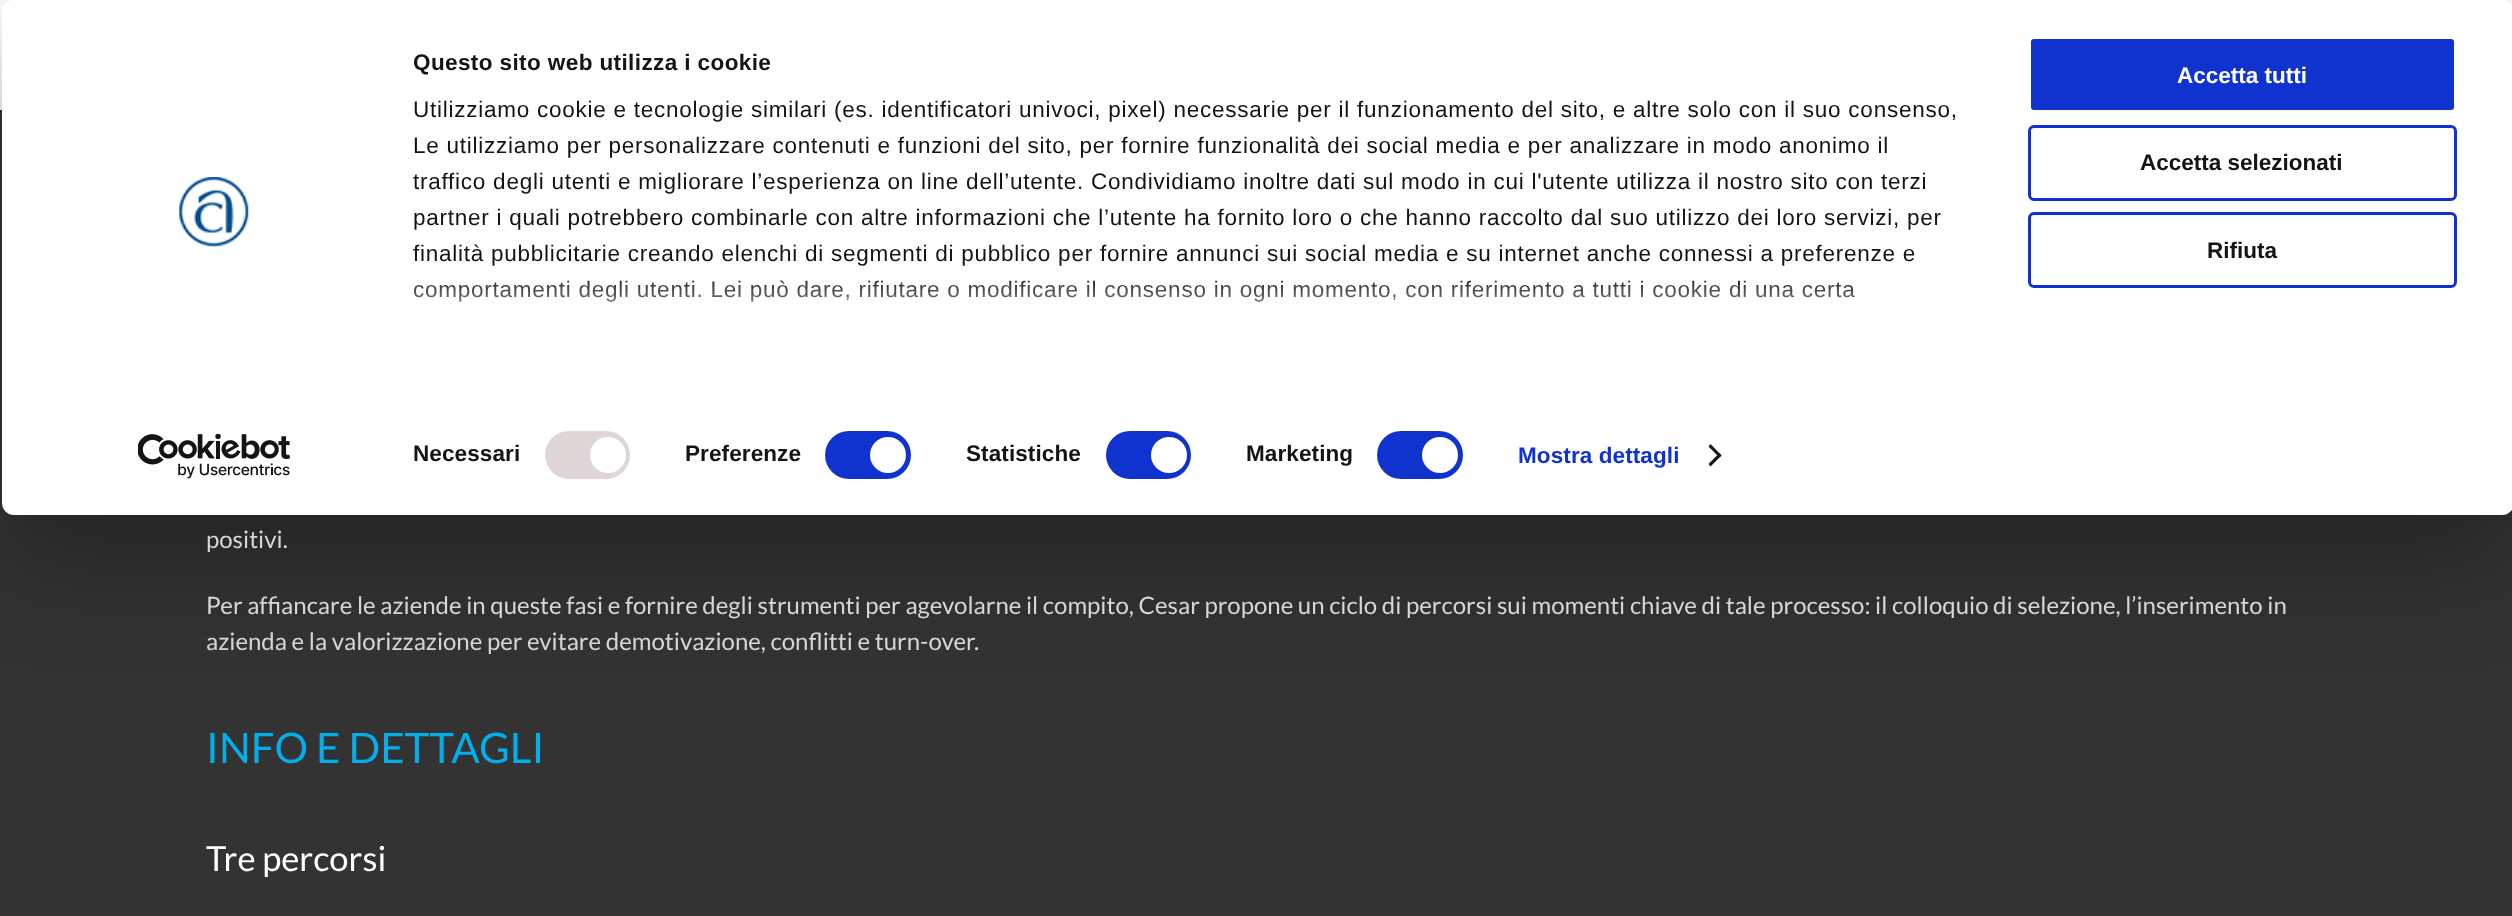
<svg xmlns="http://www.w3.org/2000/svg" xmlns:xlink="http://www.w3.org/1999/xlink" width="2512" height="916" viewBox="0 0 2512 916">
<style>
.cls-1{font:bold 22.5px Liberation Sans;letter-spacing:0.4px;fill:#141414}
.cls-2{font:22.5px Liberation Sans;letter-spacing:0.75px;fill:#141414}
.cls-3{font:bold 22.5px Liberation Sans;letter-spacing:0.1px;fill:#141414}
.cls-4{font:bold 22.5px Liberation Sans;letter-spacing:0.1px;fill:#1032cf}
.cls-5{font:bold 22.5px Liberation Sans;fill:#ffffff}
.cls-6{font:bold 22.5px Liberation Sans;fill:#141414}
.cls-7{font:24px Lato;fill:#d6d6d6}
.cls-8{font:42px Lato;fill:#00afec}
.cls-9{font:34.5px Lato;fill:#ffffff}
</style>
<defs>
<clipPath id="clip1"><path d="M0 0H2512V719H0ZM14 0H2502C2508.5 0 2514 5.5 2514 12V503C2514 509.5 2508.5 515 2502 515H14C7.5 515 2 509.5 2 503V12C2 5.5 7.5 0 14 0Z" clip-rule="evenodd"/></clipPath>
<linearGradient id="g1" gradientUnits="userSpaceOnUse" x1="1184" y1="386" x2="1184" y2="273"><stop offset="0" stop-color="#ffffff"/><stop offset="0.5" stop-color="#ffffff" stop-opacity="0.8"/><stop offset="1" stop-color="#ffffff" stop-opacity="0"/></linearGradient>
</defs>
<rect width="100%" height="100%" fill="#333333"/>
<rect fill="#fbfcfc" x="0" y="0" width="2512" height="110"/>
<g clip-path="url(#clip1)">
<rect fill="#000000" fill-opacity="0.3" filter="blur(52.5px)" x="2" y="45" width="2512" height="515" rx="12"/>
</g>
<rect fill="#ffffff" x="2" y="0" width="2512" height="515" rx="12"/>
<image xlink:href="image0.png" x="179" y="177" width="70" height="70"/>
<image xlink:href="image1.png" x="138" y="434" width="153" height="45"/>
<rect fill="#dfd7d7" x="545" y="431" width="85" height="48" rx="24"/>
<circle fill="#ffffff" cx="608" cy="455" r="18"/>
<rect fill="#1032cf" x="825" y="431" width="86" height="48" rx="24"/>
<circle fill="#ffffff" cx="888" cy="455" r="18"/>
<rect fill="#1032cf" x="1106" y="431" width="85" height="48" rx="24"/>
<circle fill="#ffffff" cx="1169" cy="455" r="18"/>
<rect fill="#1032cf" x="1377" y="431" width="86" height="48" rx="24"/>
<circle fill="#ffffff" cx="1440" cy="455" r="18"/>
<path fill="#141414" d="M1710.5 444L1721.5 455.5L1719.5 457.5L1708.5 446.5Z"/>
<path fill="#141414" d="M1719.5 453L1721.5 455.5L1710.5 466.5L1708.5 464Z"/>
<rect fill="#1032cf" stroke="#ffffff" stroke-width="3" x="2029.5" y="37.5" width="426" height="74" rx="4.5"/>
<rect fill="none" stroke="#1032cf" stroke-width="3" x="2029.5" y="126.5" width="426" height="73" rx="4.5"/>
<rect fill="none" stroke="#1032cf" stroke-width="3" x="2029.5" y="213.5" width="426" height="73" rx="4.5"/>
<text class="cls-1" x="413" y="70">Questo sito web utilizza i cookie</text>
<text class="cls-2"><tspan x="413" y="117">Utilizziamo cookie e tecnologie similari (es. identificatori univoci, pixel) necessarie per il funzionamento del sito, e altre solo con il suo consenso,</tspan><tspan x="413" y="153">Le utilizziamo per personalizzare contenuti e funzioni del sito, per fornire funzionalità dei social media e per analizzare in modo anonimo il</tspan><tspan x="413" y="189">traffico degli utenti e migliorare l’esperienza on line dell’utente. Condividiamo inoltre dati sul modo in cui l'utente utilizza il nostro sito con terzi</tspan><tspan x="413" y="225">partner i quali potrebbero combinarle con altre informazioni che l’utente ha fornito loro o che hanno raccolto dal suo utilizzo dei loro servizi, per</tspan><tspan x="413" y="261">finalità pubblicitarie creando elenchi di segmenti di pubblico per fornire annunci sui social media e su internet anche connessi a preferenze e</tspan><tspan x="413" y="297">comportamenti degli utenti. Lei può dare, rifiutare o modificare il consenso in ogni momento, con riferimento a tutti i cookie di una certa</tspan></text>
<rect fill="url(#g1)" x="414" y="280" width="1442" height="22"/>
<text class="cls-3" x="413" y="461">Necessari</text>
<text class="cls-3" x="685" y="461">Preferenze</text>
<text class="cls-3" x="966" y="461">Statistiche</text>
<text class="cls-3" x="1246" y="461">Marketing</text>
<text class="cls-4" x="1518" y="463">Mostra dettagli</text>
<text class="cls-5" x="2177" y="83">Accetta tutti</text>
<text class="cls-6" x="2140" y="170">Accetta selezionati</text>
<text class="cls-6" x="2207" y="258">Rifiuta</text>
<text class="cls-7" x="206" y="548">positivi.</text>
<text class="cls-7"><tspan x="206" y="614">Per affiancare le aziende in queste fasi e fornire degli strumenti per agevolarne il compito, Cesar propone un ciclo di percorsi sui momenti chiave di tale processo: il colloquio di selezione, l’inserimento in</tspan><tspan x="206" y="650">azienda e la valorizzazione per evitare demotivazione, conflitti e turn-over.</tspan></text>
<text class="cls-8" x="206" y="763">INFO E DETTAGLI</text>
<text class="cls-9" x="206" y="871">Tre percorsi</text>
</svg>
